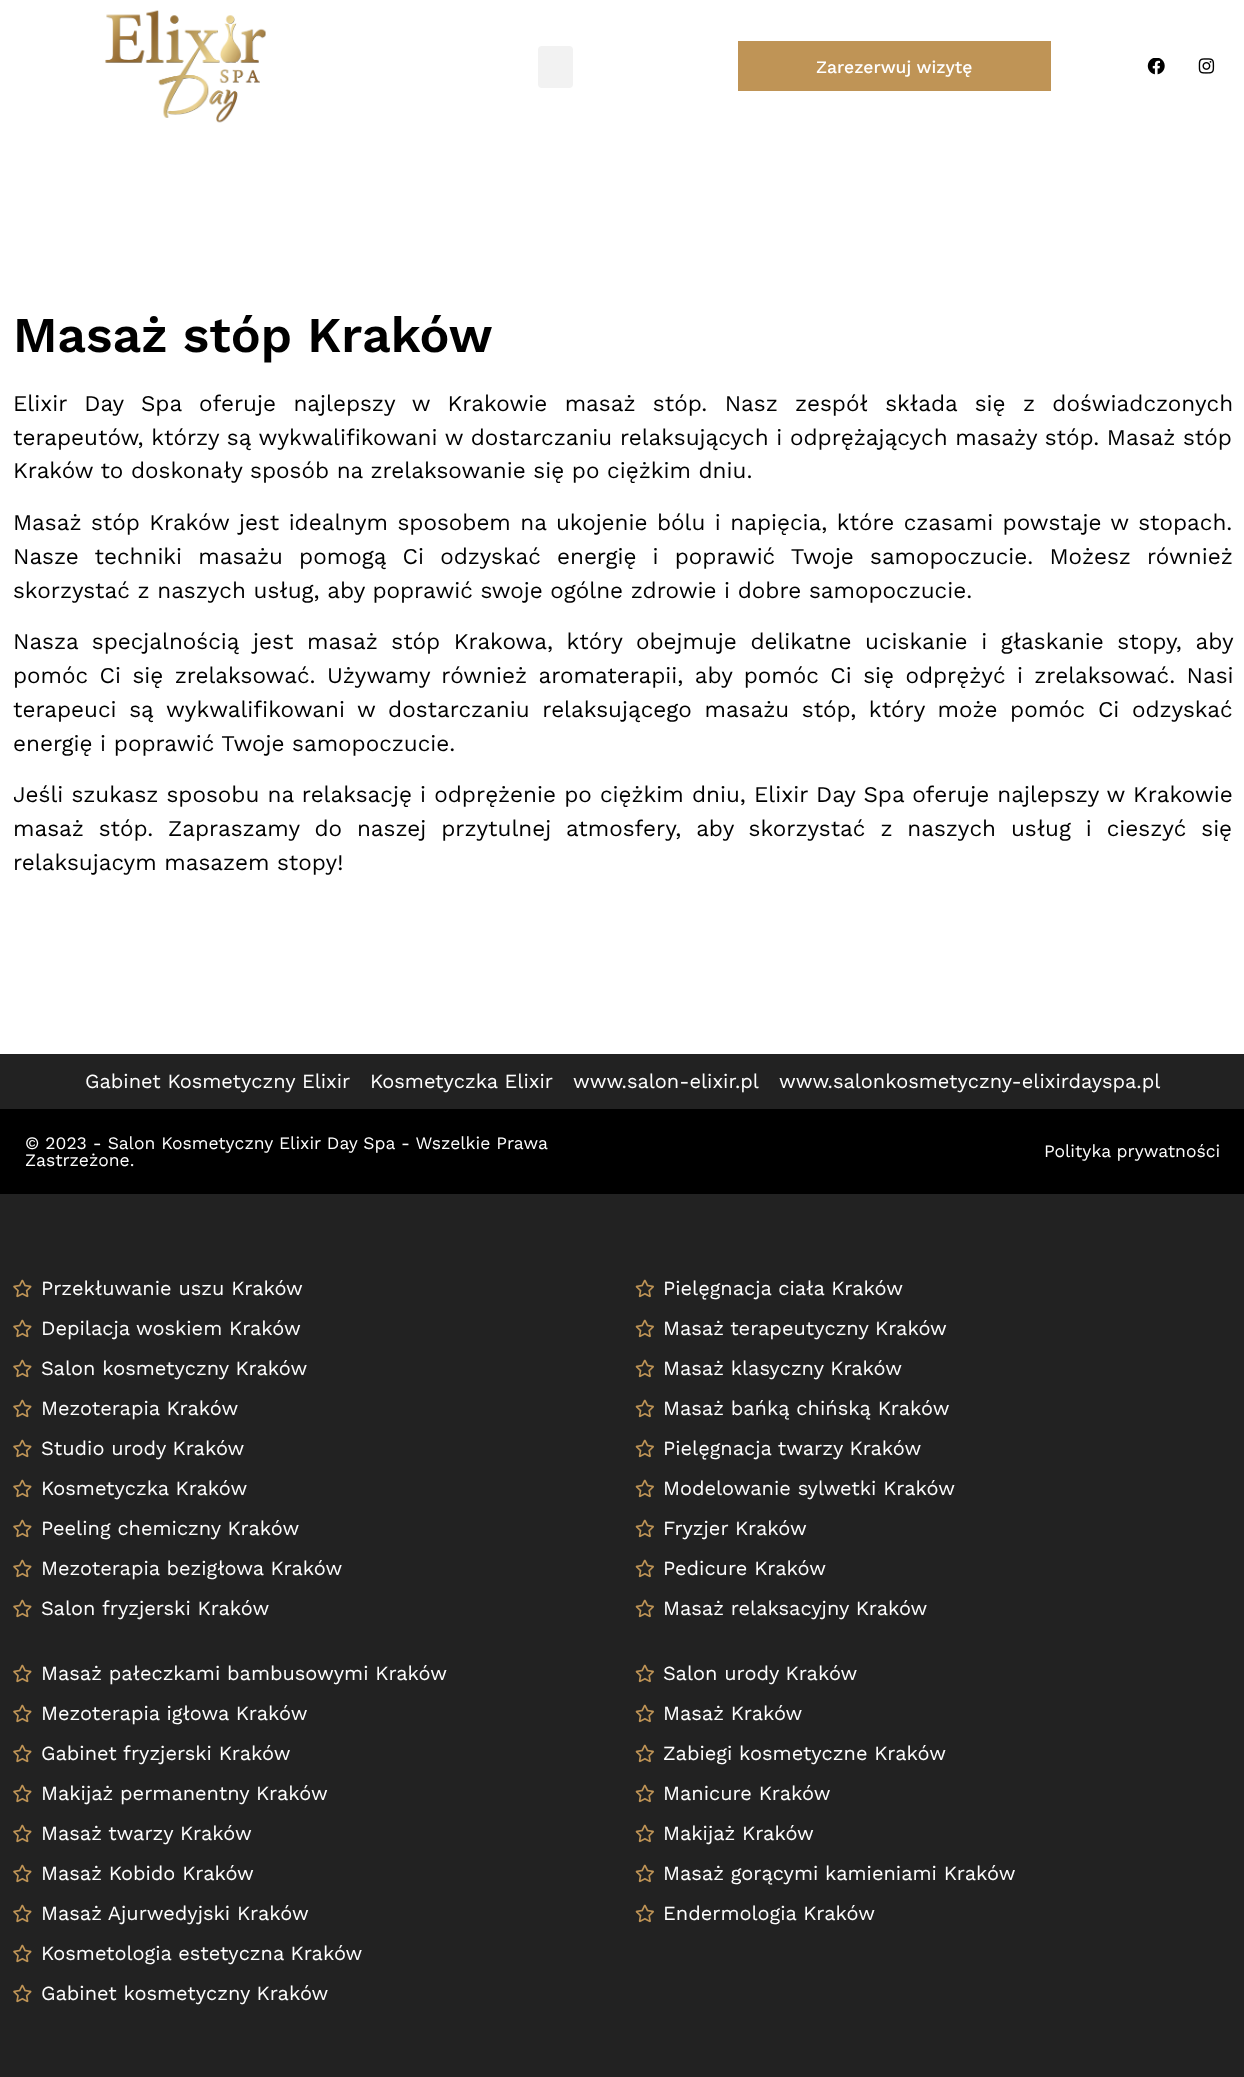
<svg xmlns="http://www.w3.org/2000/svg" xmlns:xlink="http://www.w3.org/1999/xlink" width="1244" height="2077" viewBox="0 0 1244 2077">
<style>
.cls-1{font:500 17.5px Work Sans;fill:#ffffff}
.cls-2{font:600 50px Work Sans;fill:#000000}
.cls-3{font:22.5px Work Sans;fill:#000000}
.cls-4{font:20px Work Sans;fill:#ffffff}
.cls-5{font:17.5px Work Sans;fill:#ffffff}
</style>
<rect width="100%" height="100%" fill="#ffffff"/>
<image xlink:href="image0.png" x="105" y="10" width="161" height="113"/>
<rect fill="#f2f2f2" x="538" y="46" width="35" height="42" rx="4"/>
<rect fill="#bf9456" x="738" y="41" width="313" height="50"/>
<image xlink:href="image1.png" x="1147" y="58" width="18" height="17"/>
<image xlink:href="image2.png" x="1198" y="58" width="17" height="16"/>
<rect fill="#222222" x="0" y="1054" width="1244" height="55"/>
<rect fill="#000000" x="0" y="1109" width="1244" height="85"/>
<rect fill="#222222" x="0" y="1194" width="1244" height="883"/>
<image xlink:href="image3.png" x="13" y="1279" width="19" height="19"/>
<image xlink:href="image3.png" x="13" y="1319" width="19" height="19"/>
<image xlink:href="image3.png" x="13" y="1359" width="19" height="19"/>
<image xlink:href="image3.png" x="13" y="1399" width="19" height="19"/>
<image xlink:href="image3.png" x="13" y="1439" width="19" height="19"/>
<image xlink:href="image3.png" x="13" y="1479" width="19" height="19"/>
<image xlink:href="image3.png" x="13" y="1519" width="19" height="19"/>
<image xlink:href="image3.png" x="13" y="1559" width="19" height="19"/>
<image xlink:href="image3.png" x="13" y="1599" width="19" height="19"/>
<image xlink:href="image4.png" x="635" y="1279" width="19" height="19"/>
<image xlink:href="image4.png" x="635" y="1319" width="19" height="19"/>
<image xlink:href="image4.png" x="635" y="1359" width="19" height="19"/>
<image xlink:href="image4.png" x="635" y="1399" width="19" height="19"/>
<image xlink:href="image4.png" x="635" y="1439" width="19" height="19"/>
<image xlink:href="image4.png" x="635" y="1479" width="19" height="19"/>
<image xlink:href="image4.png" x="635" y="1519" width="19" height="19"/>
<image xlink:href="image4.png" x="635" y="1559" width="19" height="19"/>
<image xlink:href="image4.png" x="635" y="1599" width="19" height="19"/>
<image xlink:href="image3.png" x="13" y="1664" width="19" height="19"/>
<image xlink:href="image3.png" x="13" y="1704" width="19" height="19"/>
<image xlink:href="image3.png" x="13" y="1744" width="19" height="19"/>
<image xlink:href="image3.png" x="13" y="1784" width="19" height="19"/>
<image xlink:href="image3.png" x="13" y="1824" width="19" height="19"/>
<image xlink:href="image3.png" x="13" y="1864" width="19" height="19"/>
<image xlink:href="image3.png" x="13" y="1904" width="19" height="19"/>
<image xlink:href="image3.png" x="13" y="1944" width="19" height="19"/>
<image xlink:href="image3.png" x="13" y="1984" width="19" height="19"/>
<image xlink:href="image4.png" x="635" y="1664" width="19" height="19"/>
<image xlink:href="image4.png" x="635" y="1704" width="19" height="19"/>
<image xlink:href="image4.png" x="635" y="1744" width="19" height="19"/>
<image xlink:href="image4.png" x="635" y="1784" width="19" height="19"/>
<image xlink:href="image4.png" x="635" y="1824" width="19" height="19"/>
<image xlink:href="image4.png" x="635" y="1864" width="19" height="19"/>
<image xlink:href="image4.png" x="635" y="1904" width="19" height="19"/>
<text class="cls-1" x="816" y="73">Zarezerwuj wizytę</text>
<text class="cls-2" x="13" y="352">Masaż stóp Kraków</text>
<text class="cls-3"><tspan x="13" y="411" word-spacing="9.75">Elixir Day Spa oferuje najlepszy w Krakowie masaż stóp. Nasz zespół składa się z doświadczonych</tspan><tspan x="13" y="445">terapeutów, którzy są wykwalifikowani w dostarczaniu relaksujących i odprężających masaży stóp. Masaż stóp</tspan><tspan x="13" y="478">Kraków to doskonały sposób na zrelaksowanie się po ciężkim dniu.</tspan></text>
<text class="cls-3"><tspan x="13" y="530" word-spacing="1.8">Masaż stóp Kraków jest idealnym sposobem na ukojenie bólu i napięcia, które czasami powstaje w stopach.</tspan><tspan x="13" y="564" word-spacing="8.5">Nasze techniki masażu pomogą Ci odzyskać energię i poprawić Twoje samopoczucie. Możesz również</tspan><tspan x="13" y="598">skorzystać z naszych usług, aby poprawić swoje ogólne zdrowie i dobre samopoczucie.</tspan></text>
<text class="cls-3"><tspan x="13" y="649" word-spacing="5.9">Nasza specjalnością jest masaż stóp Krakowa, który obejmuje delikatne uciskanie i głaskanie stopy, aby</tspan><tspan x="13" y="683" word-spacing="3.75">pomóc Ci się zrelaksować. Używamy również aromaterapii, aby pomóc Ci się odprężyć i zrelaksować. Nasi</tspan><tspan x="13" y="717" word-spacing="5">terapeuci są wykwalifikowani w dostarczaniu relaksującego masażu stóp, który może pomóc Ci odzyskać</tspan><tspan x="13" y="751">energię i poprawić Twoje samopoczucie.</tspan></text>
<text class="cls-3"><tspan x="13" y="802" word-spacing="0.5">Jeśli szukasz sposobu na relaksację i odprężenie po ciężkim dniu, Elixir Day Spa oferuje najlepszy w Krakowie</tspan><tspan x="13" y="836" word-spacing="7.25">masaż stóp. Zapraszamy do naszej przytulnej atmosfery, aby skorzystać z naszych usług i cieszyć się</tspan><tspan x="13" y="870">relaksujacym masazem stopy!</tspan></text>
<text class="cls-4" x="85" y="1088">Gabinet Kosmetyczny Elixir</text>
<text class="cls-4" x="370" y="1088">Kosmetyczka Elixir</text>
<text class="cls-4" x="573" y="1088">www.salon-elixir.pl</text>
<text class="cls-4" x="779" y="1088">www.salonkosmetyczny-elixirdayspa.pl</text>
<text class="cls-5"><tspan x="25" y="1149">© 2023 - Salon Kosmetyczny Elixir Day Spa - Wszelkie Prawa</tspan><tspan x="25" y="1166">Zastrzeżone.</tspan></text>
<text class="cls-5" x="1044" y="1157">Polityka prywatności</text>
<text class="cls-4" x="41" y="1295">Przekłuwanie uszu Kraków</text>
<text class="cls-4" x="41" y="1335">Depilacja woskiem Kraków</text>
<text class="cls-4" x="41" y="1375">Salon kosmetyczny Kraków</text>
<text class="cls-4" x="41" y="1415">Mezoterapia Kraków</text>
<text class="cls-4" x="41" y="1455">Studio urody Kraków</text>
<text class="cls-4" x="41" y="1495">Kosmetyczka Kraków</text>
<text class="cls-4" x="41" y="1535">Peeling chemiczny Kraków</text>
<text class="cls-4" x="41" y="1575">Mezoterapia bezigłowa Kraków</text>
<text class="cls-4" x="41" y="1615">Salon fryzjerski Kraków</text>
<text class="cls-4" x="663" y="1295">Pielęgnacja ciała Kraków</text>
<text class="cls-4" x="663" y="1335">Masaż terapeutyczny Kraków</text>
<text class="cls-4" x="663" y="1375">Masaż klasyczny Kraków</text>
<text class="cls-4" x="663" y="1415">Masaż bańką chińską Kraków</text>
<text class="cls-4" x="663" y="1455">Pielęgnacja twarzy Kraków</text>
<text class="cls-4" x="663" y="1495">Modelowanie sylwetki Kraków</text>
<text class="cls-4" x="663" y="1535">Fryzjer Kraków</text>
<text class="cls-4" x="663" y="1575">Pedicure Kraków</text>
<text class="cls-4" x="663" y="1615">Masaż relaksacyjny Kraków</text>
<text class="cls-4" x="41" y="1680">Masaż pałeczkami bambusowymi Kraków</text>
<text class="cls-4" x="41" y="1720">Mezoterapia igłowa Kraków</text>
<text class="cls-4" x="41" y="1760">Gabinet fryzjerski Kraków</text>
<text class="cls-4" x="41" y="1800">Makijaż permanentny Kraków</text>
<text class="cls-4" x="41" y="1840">Masaż twarzy Kraków</text>
<text class="cls-4" x="41" y="1880">Masaż Kobido Kraków</text>
<text class="cls-4" x="41" y="1920">Masaż Ajurwedyjski Kraków</text>
<text class="cls-4" x="41" y="1960">Kosmetologia estetyczna Kraków</text>
<text class="cls-4" x="41" y="2000">Gabinet kosmetyczny Kraków</text>
<text class="cls-4" x="663" y="1680">Salon urody Kraków</text>
<text class="cls-4" x="663" y="1720">Masaż Kraków</text>
<text class="cls-4" x="663" y="1760">Zabiegi kosmetyczne Kraków</text>
<text class="cls-4" x="663" y="1800">Manicure Kraków</text>
<text class="cls-4" x="663" y="1840">Makijaż Kraków</text>
<text class="cls-4" x="663" y="1880">Masaż gorącymi kamieniami Kraków</text>
<text class="cls-4" x="663" y="1920">Endermologia Kraków</text>
</svg>
